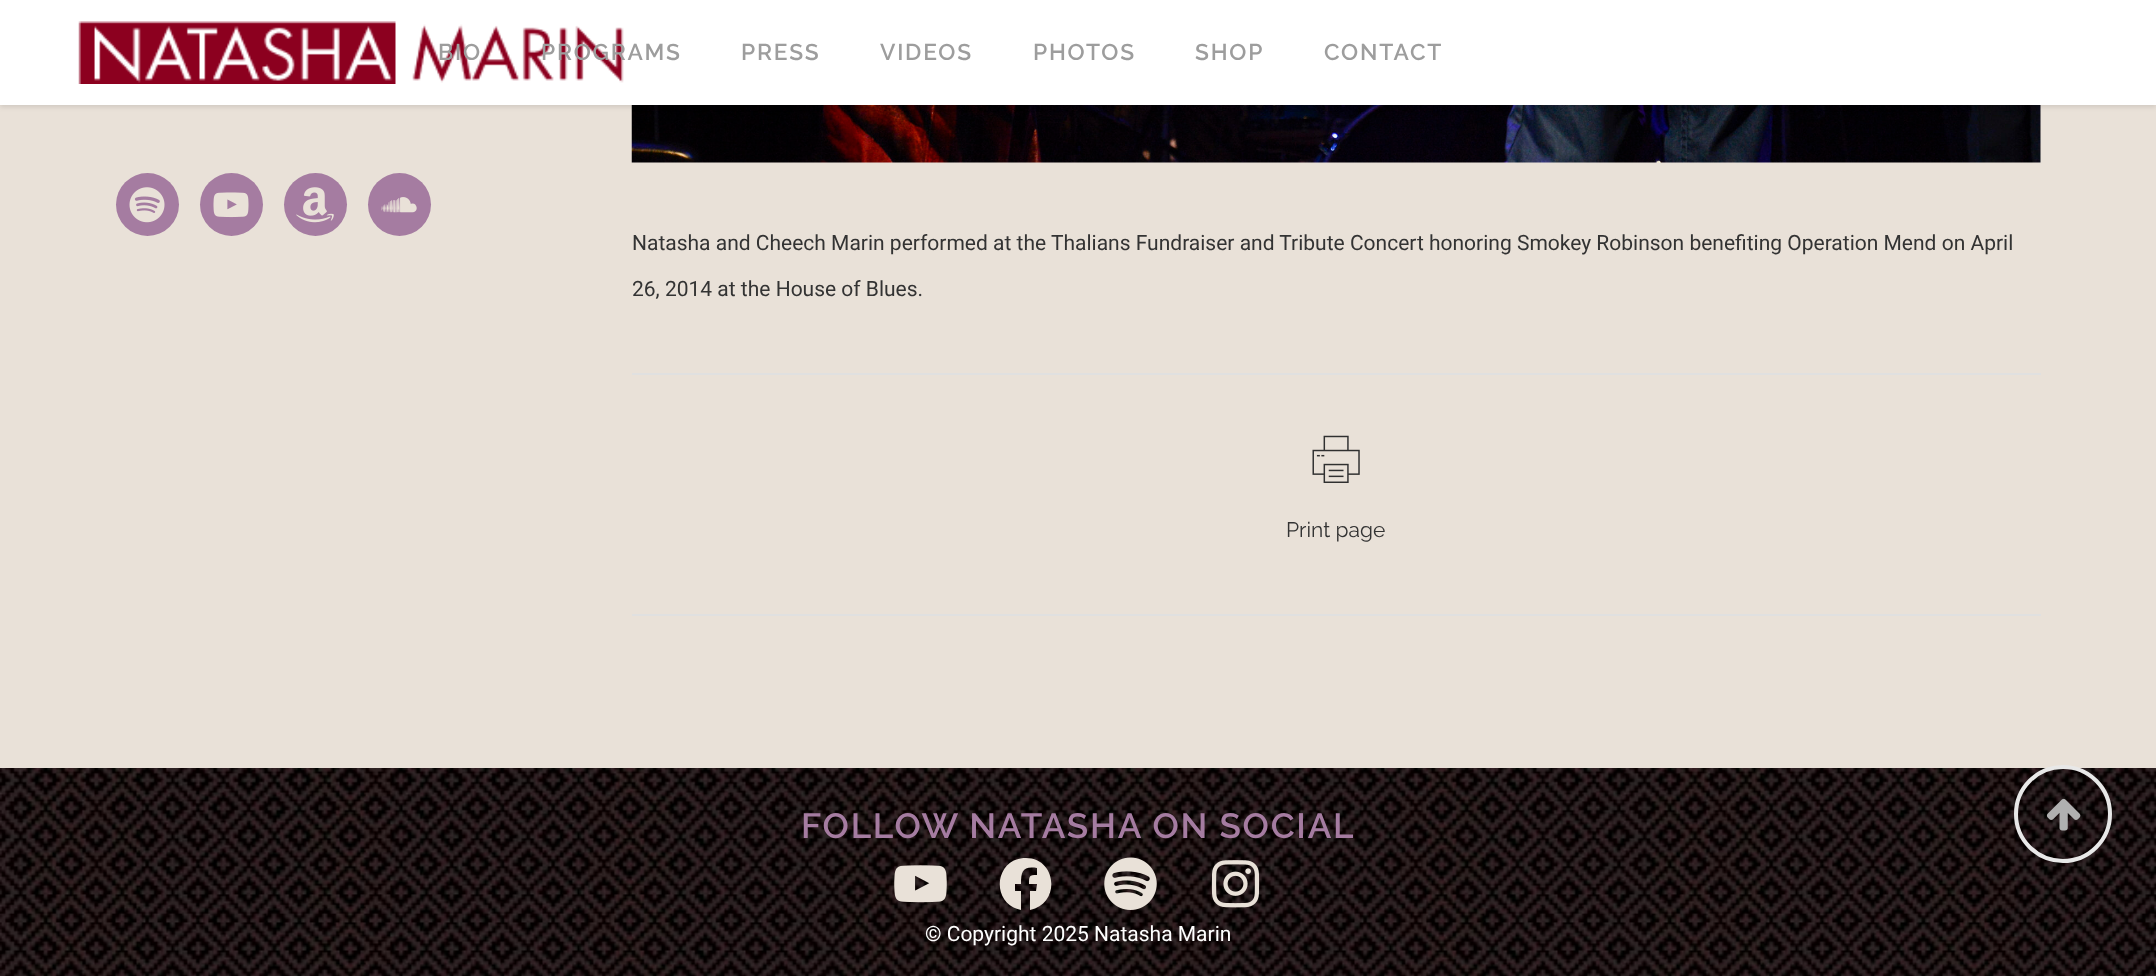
<svg xmlns="http://www.w3.org/2000/svg" xmlns:xlink="http://www.w3.org/1999/xlink" width="2156" height="976" viewBox="0 0 2156 976">
<style>
.cls-1{font:600 22.75px Raleway;letter-spacing:1.75px;fill:#9d9d9d}
.cls-2{font:21px Roboto;fill:#333333}
.cls-3{font:21px Raleway;fill:#333333}
.cls-4{font:600 35px Raleway;letter-spacing:1.75px;fill:#a57ca1}
.cls-5{font:21px Roboto;fill:#ffffff}
</style>
<rect width="100%" height="100%" fill="#e9e1d8"/>
<image xlink:href="image5.png" x="631" y="105" width="1410" height="58"/>
<rect fill="#000000" fill-opacity="0.11" filter="blur(2.5px)" x="0" y="2" width="2156" height="105"/>
<rect fill="#ffffff" x="0" y="0" width="2156" height="105"/>
<image xlink:href="image0.png" x="78" y="21" width="546" height="63"/>
<circle fill="#a57ca1" cx="147.5" cy="204.5" r="31.5"/>
<image xlink:href="image1.png" x="129" y="187" width="36" height="36"/>
<circle fill="#a57ca1" cx="231.5" cy="204.5" r="31.5"/>
<image xlink:href="image2.png" x="213" y="192" width="36" height="26"/>
<circle fill="#a57ca1" cx="315.5" cy="204.5" r="31.5"/>
<image xlink:href="image3.png" x="296" y="187" width="38" height="36"/>
<circle fill="#a57ca1" cx="399.5" cy="204.5" r="31.5"/>
<image xlink:href="image4.png" x="381" y="197" width="36" height="16"/>
<rect fill="#e0e0e0" x="632" y="373" width="1409" height="2"/>
<rect fill="#e0e0e0" x="632" y="614" width="1409" height="2"/>
<image xlink:href="image6.png" x="1312" y="435" width="48" height="48"/>
<image xlink:href="image7.png" x="0" y="768" width="2156" height="208"/>
<image xlink:href="image8.png" x="894" y="865" width="53" height="38"/>
<path fill="#e9e1d8" d="M1026 858C994 858 990 904 1021 910V891H1015V884H1021C1021 871 1023 866 1037 868V875C1029 875 1029 876 1029 884H1037L1036 891H1030V910C1061 904 1057 858 1026 858Z"/>
<image xlink:href="image9.png" x="1104" y="857" width="53" height="53"/>
<image xlink:href="image10.png" x="1211" y="860" width="49" height="48"/>
<circle fill="none" stroke="#e8e8e8" stroke-width="4" cx="2063" cy="814" r="47"/>
<image xlink:href="image11.png" x="2046" y="798" width="35" height="33"/>
<text class="cls-1" x="438" y="60">BIO</text>
<text class="cls-1" x="541" y="60">PROGRAMS</text>
<text class="cls-1" x="741" y="60">PRESS</text>
<text class="cls-1" x="880" y="60">VIDEOS</text>
<text class="cls-1" x="1033" y="60">PHOTOS</text>
<text class="cls-1" x="1195" y="60">SHOP</text>
<text class="cls-1" x="1324" y="60">CONTACT</text>
<text class="cls-2" x="632" y="250">Natasha and Cheech Marin performed at the Thalians Fundraiser and Tribute Concert honoring Smokey Robinson benefiting Operation Mend on April</text>
<text class="cls-2" x="632" y="296">26, 2014 at the House of Blues.</text>
<text class="cls-3" x="1286" y="537">Print page</text>
<text class="cls-4" x="801" y="838">FOLLOW NATASHA ON SOCIAL</text>
<text class="cls-5" x="925" y="941">© Copyright 2025 Natasha Marin</text>
</svg>
